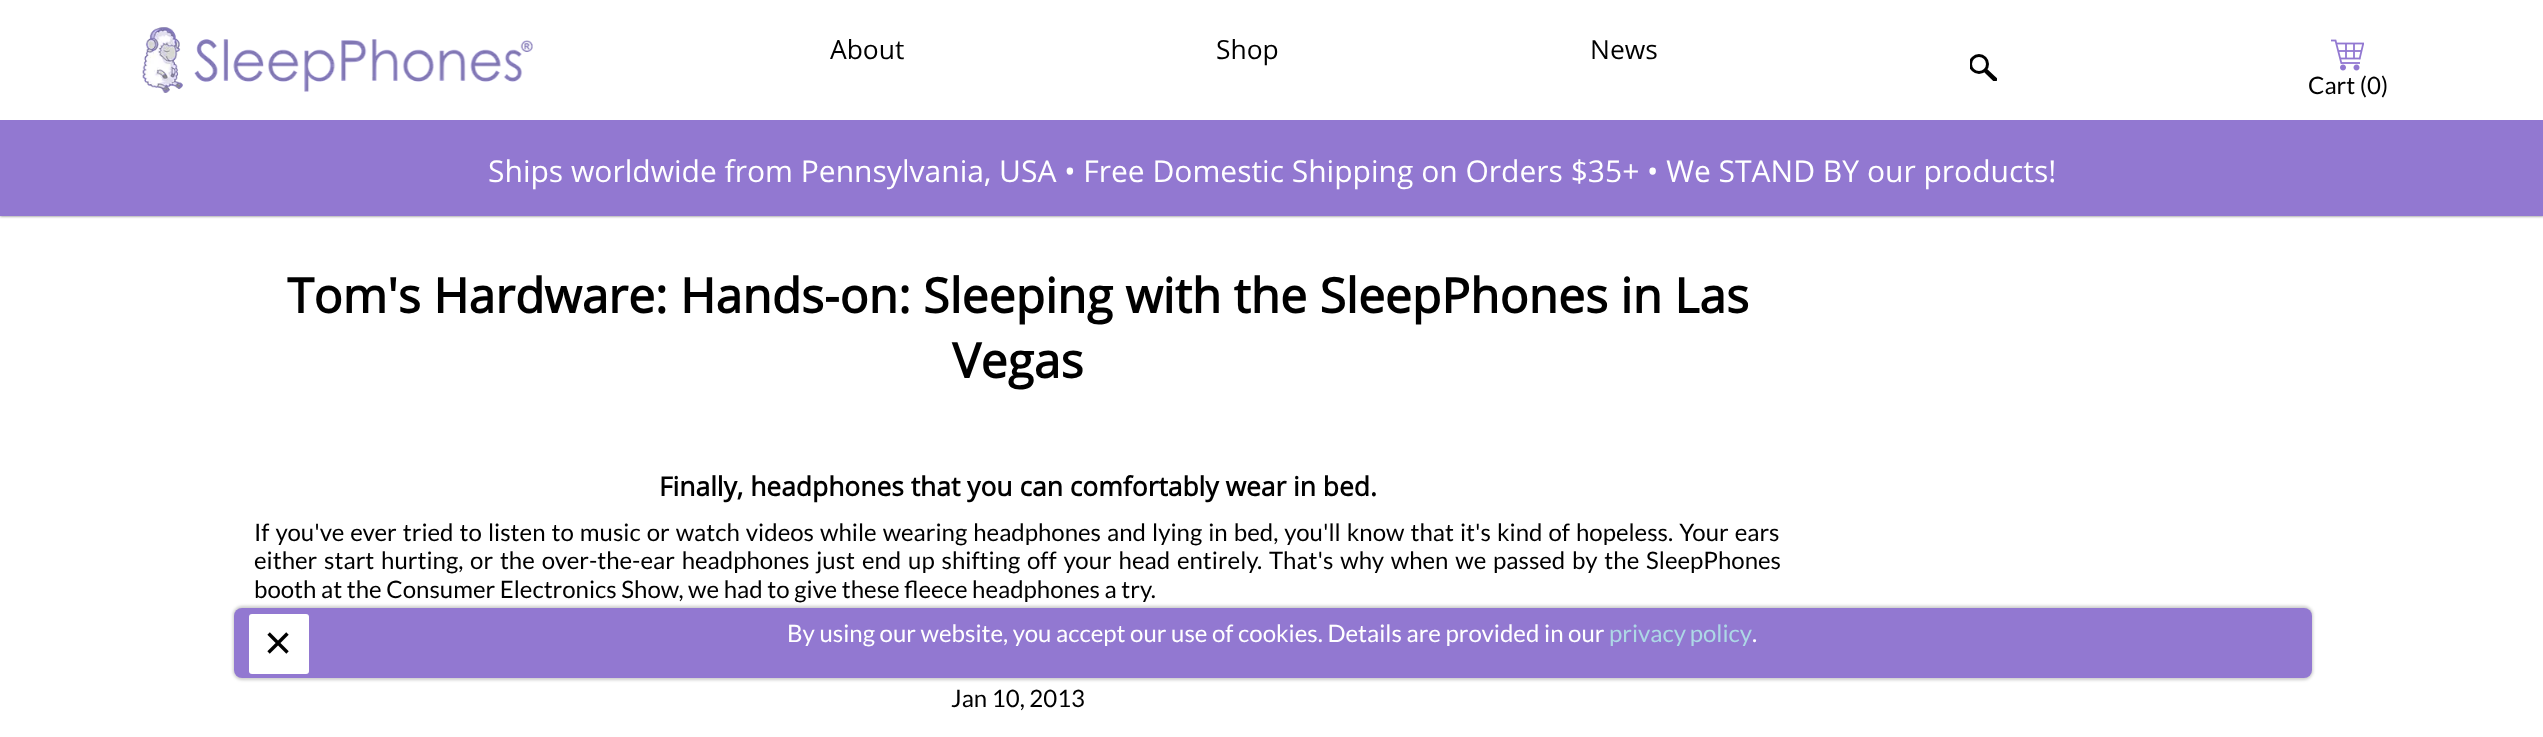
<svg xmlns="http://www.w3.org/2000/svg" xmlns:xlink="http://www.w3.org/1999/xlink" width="2543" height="737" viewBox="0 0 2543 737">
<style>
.cls-1{font:26.4px Open Sans;fill:#000000}
.cls-2{font:24px Lato;fill:#000000}
.cls-3{font:30px Open Sans;fill:#ffffff}
.cls-4{font:bold 48px Open Sans;fill:#000000}
.cls-5{font:bold 26.4px Open Sans;fill:#000000}
.cls-6{font:48px Liberation Sans;fill:#000000}
.cls-7{font:24px Lato;fill:#ffffff}
.cls-8{font:24px Lato;fill:#add8e6}
</style>
<defs>
<clipPath id="clip1"><rect x="1970" y="54" width="27" height="27"/></clipPath>
</defs>
<rect width="100%" height="100%" fill="#ffffff"/>
<rect fill="#696969" filter="blur(1.5px)" x="0" y="0" width="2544" height="216"/>
<rect fill="#ffffff" x="0" y="0" width="2543" height="120"/>
<image xlink:href="image0.png" x="142" y="27" width="391" height="66"/>
<g clip-path="url(#clip1)">
<circle fill="#000000" cx="1979" cy="64" r="10"/>
</g>
<circle fill="#ffffff" cx="1979" cy="64" r="7"/>
<g clip-path="url(#clip1)">
<path fill="none" stroke="#000000" stroke-width="4.5" d="M1984.5 69.5L1996.5 81"/>
</g>
<image xlink:href="image1.png" x="2331" y="39" width="33" height="32"/>
<rect fill="#9278d1" x="0" y="120" width="2543" height="96"/>
<rect fill="#000000" fill-opacity="0.2" filter="blur(1.5px)" x="233" y="606" width="2080" height="74" rx="9"/>
<rect fill="#9278d1" x="234" y="608" width="2078" height="70" rx="8"/>
<rect fill="#ffffff" x="249" y="614" width="60" height="60" rx="3"/>
<text class="cls-1" x="830" y="59">About</text>
<text class="cls-1" x="1216" y="59">Shop</text>
<text class="cls-1" x="1590" y="59">News</text>
<text class="cls-2" x="2308" y="94">Cart (0)</text>
<text class="cls-3" x="488" y="182">Ships worldwide from Pennsylvania, USA • Free Domestic Shipping on Orders $35+ • We STAND BY our products!</text>
<text class="cls-4" x="287" y="313">Tom's Hardware: Hands-on: Sleeping with the SleepPhones in Las</text>
<text class="cls-4" x="952" y="378">Vegas</text>
<text class="cls-5" x="659" y="496">Finally, headphones that you can comfortably wear in bed.</text>
<text class="cls-2"><tspan x="254" y="541" word-spacing="1.4">If you've ever tried to listen to music or watch videos while wearing headphones and lying in bed, you'll know that it's kind of hopeless. Your ears</tspan><tspan x="254" y="569" word-spacing="2.2">either start hurting, or the over-the-ear headphones just end up shifting off your head entirely. That's why when we passed by the SleepPhones</tspan><tspan x="254" y="598">booth at the Consumer Electronics Show, we had to give these fleece headphones a try.</tspan></text>
<text class="cls-2" x="951" y="707">Jan 10, 2013</text>
<text class="cls-6" x="264" y="659">×</text>
<text class="cls-7" x="787" y="642">By using our website, you accept our use of cookies. Details are provided in our</text>
<text class="cls-8" x="1609" y="642" word-spacing="-1">privacy policy</text>
<text class="cls-7" x="1752" y="642">.</text>
</svg>
